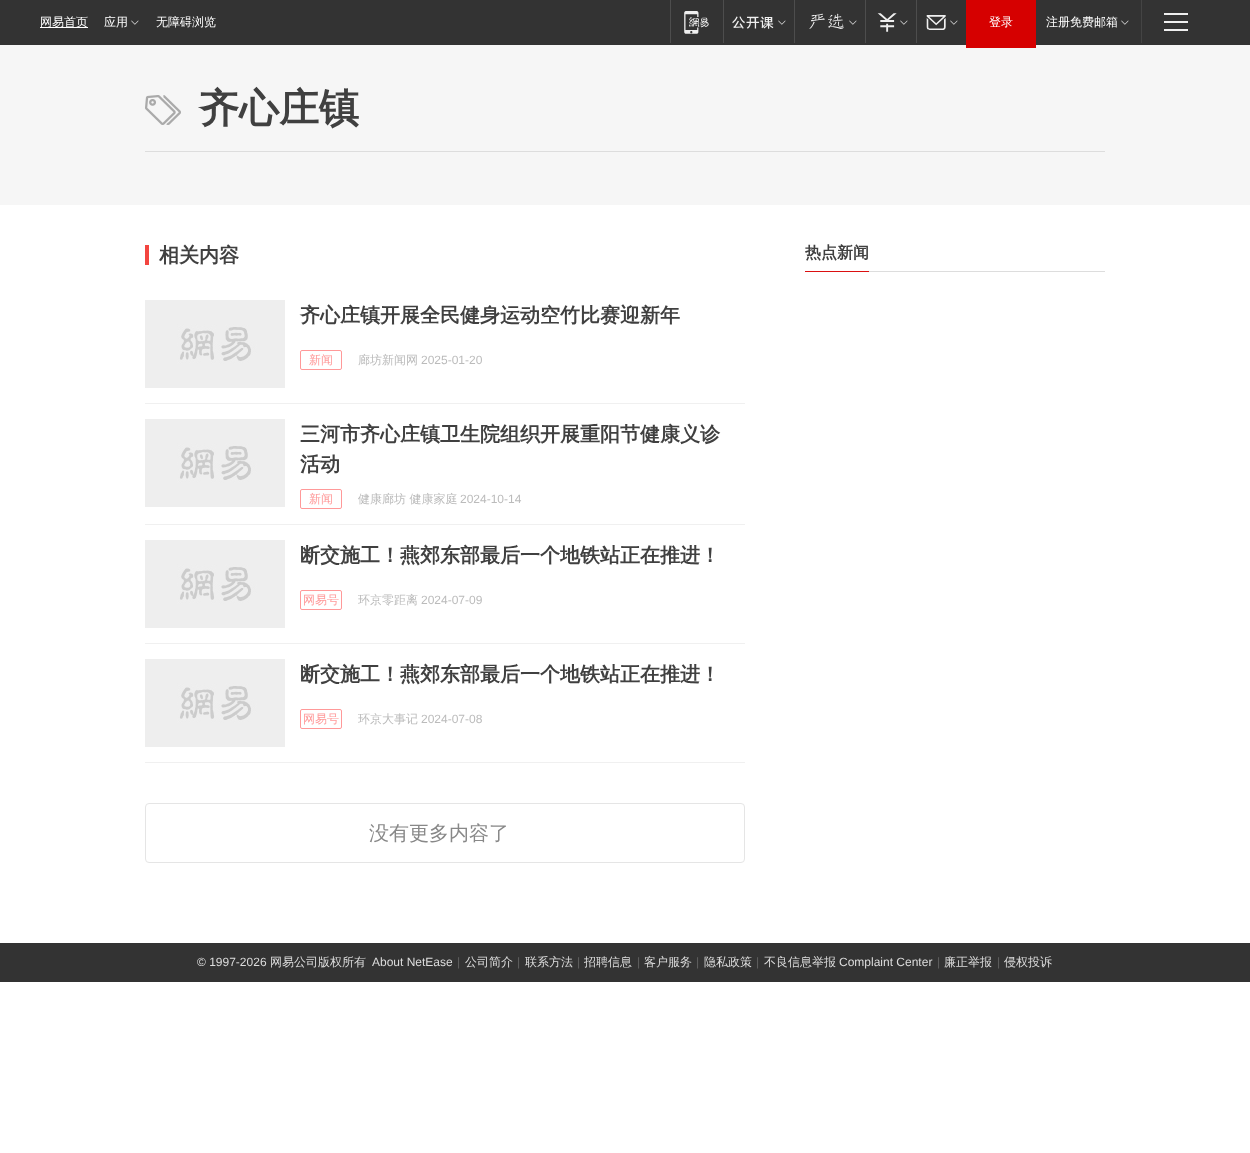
<svg xmlns="http://www.w3.org/2000/svg" xmlns:xlink="http://www.w3.org/1999/xlink" width="1250" height="1153" viewBox="0 0 1250 1153">
<style>
.cls-1{font:500 12px WenQuanYi Zen Hei;fill:#ffffff}
.cls-2{font:bold 40px WenQuanYi Zen Hei;fill:#404040}
.cls-3{font:bold 20px WenQuanYi Zen Hei;fill:#404040}
.cls-4{font:500 12px WenQuanYi Zen Hei;fill:#ff9999}
.cls-5{font:500 12px WenQuanYi Zen Hei;fill:#bbbbbb}
.cls-6{font:12px Liberation Sans;fill:#bbbbbb}
.cls-7{font:500 20px WenQuanYi Zen Hei;fill:#888888}
.cls-8{font:bold 16px WenQuanYi Zen Hei;fill:#404040}
.cls-9{font:12px Liberation Sans;fill:#dddddd}
.cls-10{font:500 12px WenQuanYi Zen Hei;fill:#dddddd}
.cls-11{font:12px Liberation Sans;fill:#616161}
</style>
<rect width="100%" height="100%" fill="#ffffff"/>
<rect fill="#333333" x="0" y="0" width="1250" height="45"/>
<rect fill="#ffffff" x="40" y="27" width="48" height="1"/>
<image xlink:href="image0.png" x="131" y="20" width="8" height="5"/>
<rect fill="#4d4d4d" x="670" y="0" width="1" height="43"/>
<image xlink:href="image1.png" x="684" y="11" width="25" height="23"/>
<rect fill="#4d4d4d" x="723" y="0" width="1" height="43"/>
<image xlink:href="image2.png" x="732" y="16" width="42" height="13"/>
<image xlink:href="image0.png" x="778" y="20" width="8" height="5"/>
<rect fill="#4d4d4d" x="794" y="0" width="1" height="43"/>
<image xlink:href="image3.png" x="809" y="13" width="35" height="16"/>
<image xlink:href="image0.png" x="849" y="20" width="8" height="5"/>
<rect fill="#4d4d4d" x="865" y="0" width="1" height="43"/>
<image xlink:href="image4.png" x="877" y="13" width="20" height="19"/>
<image xlink:href="image0.png" x="900" y="20" width="8" height="5"/>
<rect fill="#4d4d4d" x="916" y="0" width="1" height="43"/>
<image xlink:href="image5.png" x="926" y="15" width="20" height="15"/>
<image xlink:href="image0.png" x="950" y="20" width="8" height="5"/>
<rect fill="#f6f6f6" x="0" y="45" width="1250" height="160"/>
<rect fill="#d60000" x="966" y="0" width="70" height="48"/>
<image xlink:href="image0.png" x="1121" y="20" width="8" height="5"/>
<rect fill="#444444" x="1141" y="0" width="1" height="43"/>
<rect fill="#efefef" x="1164" y="13" width="24" height="2"/>
<rect fill="#efefef" x="1164" y="21" width="24" height="2"/>
<rect fill="#efefef" x="1164" y="29" width="24" height="2"/>
<image xlink:href="image6.png" x="145" y="95" width="36" height="30"/>
<rect fill="#dddddd" x="145" y="151" width="960" height="1"/>
<rect fill="#f34540" x="145" y="245" width="4" height="20"/>
<rect fill="#f0f0f0" x="145" y="403" width="600" height="1"/>
<image xlink:href="image7.png" x="145" y="300" width="140" height="88"/>
<rect fill="none" stroke="#ff9999" x="300.5" y="350.5" width="41" height="19" rx="1.5"/>
<rect fill="#f0f0f0" x="145" y="524" width="600" height="1"/>
<image xlink:href="image7.png" x="145" y="419" width="140" height="88"/>
<rect fill="none" stroke="#ff9999" x="300.5" y="489.5" width="41" height="19" rx="1.5"/>
<rect fill="#f0f0f0" x="145" y="643" width="600" height="1"/>
<image xlink:href="image7.png" x="145" y="540" width="140" height="88"/>
<rect fill="none" stroke="#ff9999" x="300.5" y="590.5" width="41" height="19" rx="1.5"/>
<rect fill="#f0f0f0" x="145" y="762" width="600" height="1"/>
<image xlink:href="image7.png" x="145" y="659" width="140" height="88"/>
<rect fill="none" stroke="#ff9999" x="300.5" y="709.5" width="41" height="19" rx="1.5"/>
<rect fill="none" stroke="#e5e5e5" x="145.5" y="803.5" width="599" height="59" rx="3.5"/>
<rect fill="#dddddd" x="869" y="271" width="236" height="1"/>
<rect fill="#db1011" x="805" y="271" width="64" height="1"/>
<rect fill="#333333" x="0" y="943" width="1250" height="39"/>
<text class="cls-1" x="40" y="26">网易首页</text>
<text class="cls-1" x="104" y="26">应用</text>
<text class="cls-1" x="156" y="26">无障碍浏览</text>
<text class="cls-1" x="989" y="26">登录</text>
<text class="cls-1" x="1046" y="26">注册免费邮箱</text>
<text class="cls-2" x="199" y="122">齐心庄镇</text>
<text class="cls-3" x="159" y="262">相关内容</text>
<text class="cls-3" x="300" y="322">齐心庄镇开展全民健身运动空竹比赛迎新年</text>
<text class="cls-4" x="309" y="364">新闻</text>
<text class="cls-5" x="358" y="364">廊坊新闻网</text>
<text class="cls-6" x="421" y="364">2025-01-20</text>
<text class="cls-3"><tspan x="300" y="441">三河市齐心庄镇卫生院组织开展重阳节健康义诊</tspan><tspan x="300" y="471">活动</tspan></text>
<text class="cls-4" x="309" y="503">新闻</text>
<text class="cls-5" x="358" y="503">健康廊坊 健康家庭</text>
<text class="cls-6" x="460" y="503">2024-10-14</text>
<text class="cls-3" x="300" y="562">断交施工！燕郊东部最后一个地铁站正在推进！</text>
<text class="cls-4" x="303" y="604">网易号</text>
<text class="cls-5" x="358" y="604">环京零距离</text>
<text class="cls-6" x="421" y="604">2024-07-09</text>
<text class="cls-3" x="300" y="681">断交施工！燕郊东部最后一个地铁站正在推进！</text>
<text class="cls-4" x="303" y="723">网易号</text>
<text class="cls-5" x="358" y="723">环京大事记</text>
<text class="cls-6" x="421" y="723">2024-07-08</text>
<text class="cls-7" x="369" y="840">没有更多内容了</text>
<text class="cls-8" x="805" y="258">热点新闻</text>
<text class="cls-9" x="197" y="966">© 1997-2026</text>
<text class="cls-10" x="270" y="966">网易公司版权所有</text>
<text class="cls-9" x="372" y="966">About NetEase</text>
<text class="cls-11" x="457" y="966">|</text>
<text class="cls-10" x="465" y="966">公司简介</text>
<text class="cls-11" x="517" y="966">|</text>
<text class="cls-10" x="525" y="966">联系方法</text>
<text class="cls-11" x="577" y="966">|</text>
<text class="cls-10" x="584" y="966">招聘信息</text>
<text class="cls-11" x="637" y="966">|</text>
<text class="cls-10" x="644" y="966">客户服务</text>
<text class="cls-11" x="696" y="966">|</text>
<text class="cls-10" x="704" y="966">隐私政策</text>
<text class="cls-11" x="756" y="966">|</text>
<text class="cls-10" x="764" y="966">不良信息举报</text>
<text class="cls-9" x="839" y="966">Complaint Center</text>
<text class="cls-11" x="937" y="966">|</text>
<text class="cls-10" x="944" y="966">廉正举报</text>
<text class="cls-11" x="997" y="966">|</text>
<text class="cls-10" x="1004" y="966">侵权投诉</text>
</svg>
